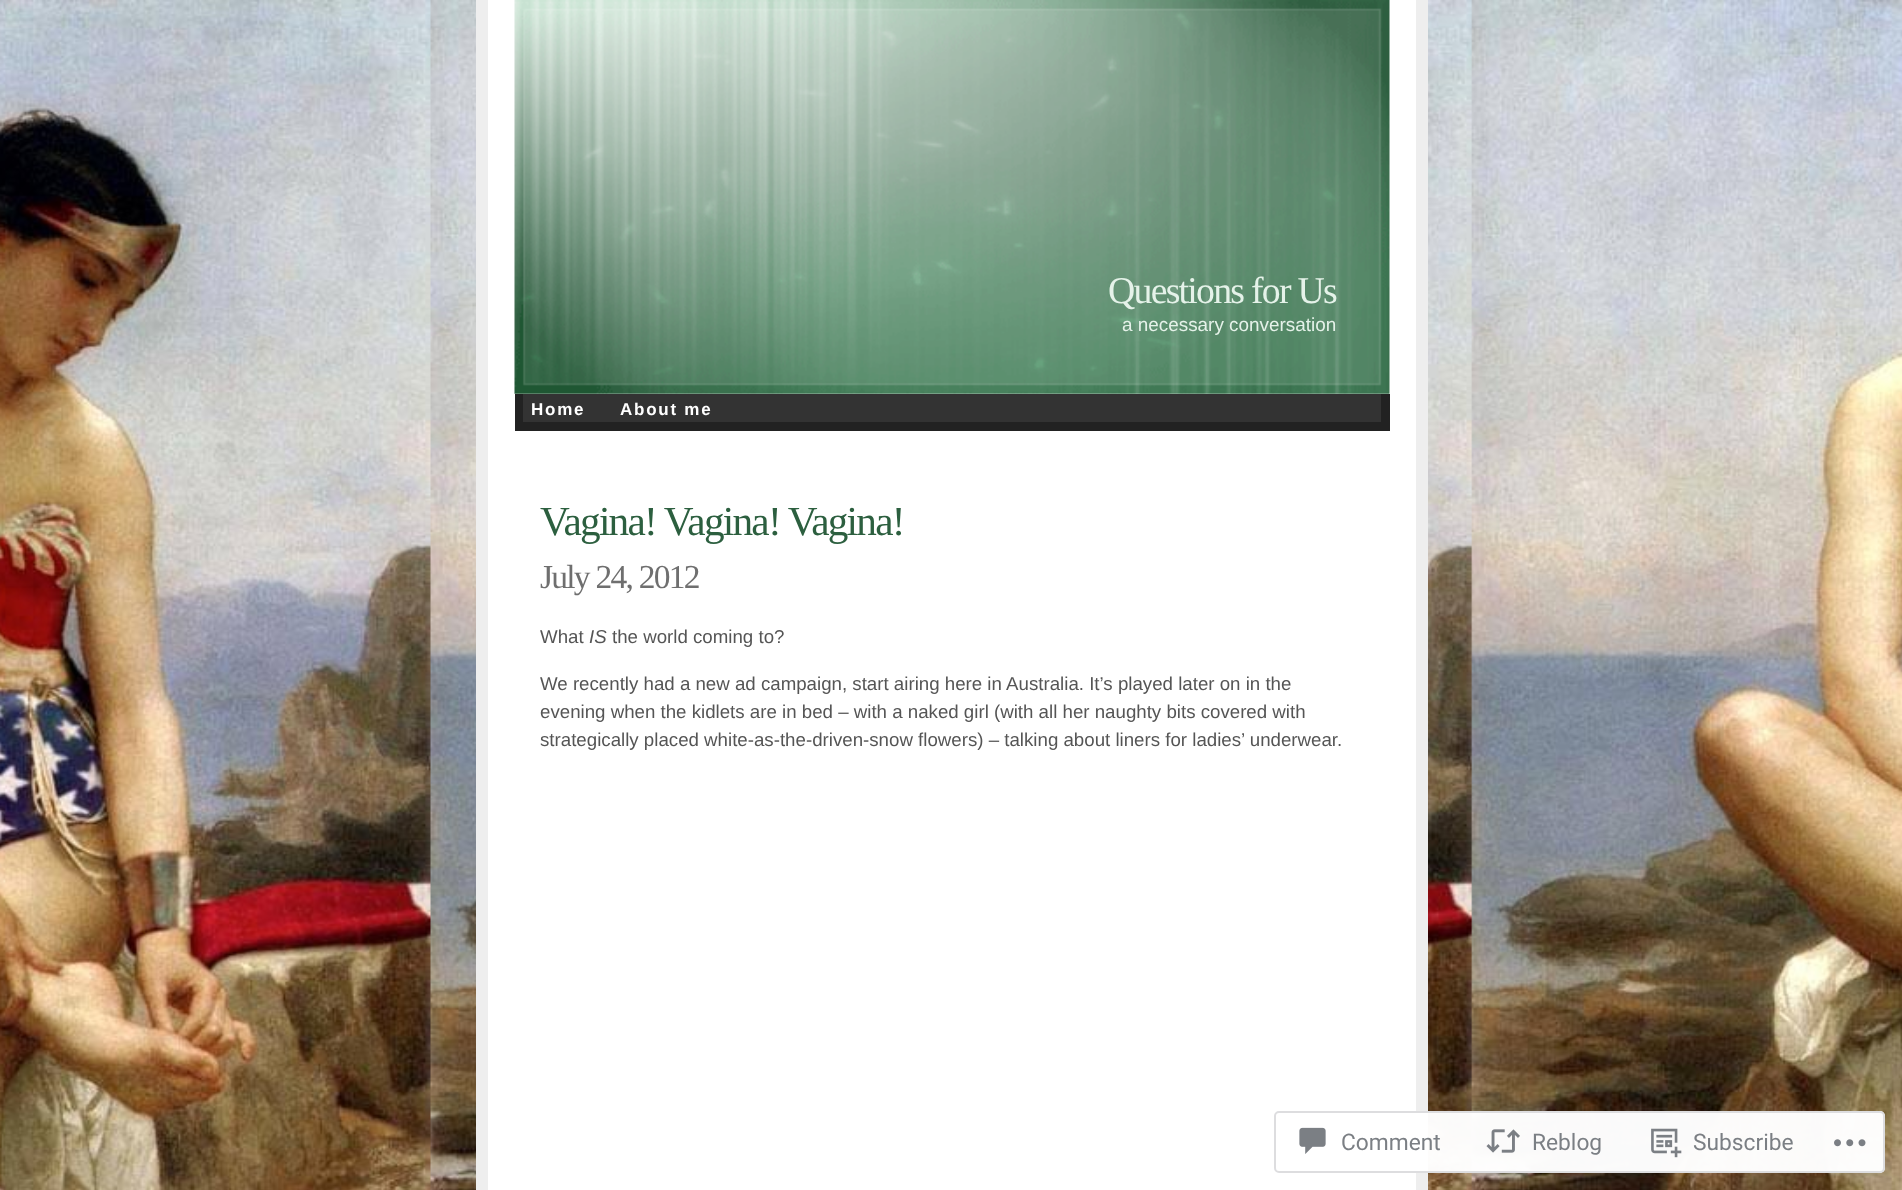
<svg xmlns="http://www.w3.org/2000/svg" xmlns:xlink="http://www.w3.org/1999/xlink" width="1902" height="1190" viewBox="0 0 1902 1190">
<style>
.cls-1{font:37.75px Liberation Serif;letter-spacing:-1.75px;fill:#e5f2e9}
.cls-2{font:18.9px Liberation Sans;fill:#e5f2e9}
.cls-3{font:bold 17px Liberation Sans;letter-spacing:1.75px;fill:#ffffff}
.cls-4{font:41.25px Liberation Serif;letter-spacing:-1.75px;fill:#2c5f3f}
.cls-5{font:33.5px Liberation Serif;letter-spacing:-1.75px;fill:#6f6f6f}
.cls-6{font:18.7px Liberation Sans;fill:#555555}
.cls-7{font:italic 18.7px Liberation Sans;fill:#555555}
.cls-8{font:22.75px Roboto;fill:#7b7f84}
</style>
<rect width="100%" height="100%" fill="#ffffff"/>
<image xlink:href="image0.png" x="0" y="0" width="1902" height="1190"/>
<rect fill="#ffffff" x="488" y="0" width="928" height="1190"/>
<rect fill="#eeeeee" x="1416" y="0" width="12" height="1190"/>
<rect fill="#eeeeee" x="476" y="0" width="12" height="1190"/>
<image xlink:href="image1.png" x="514" y="0" width="876" height="394"/>
<rect fill="#333333" x="523" y="394" width="858" height="28"/>
<rect fill="#222222" x="1381" y="394" width="9" height="28"/>
<rect fill="#222222" x="523" y="422" width="867" height="9"/>
<rect fill="#222222" x="515" y="394" width="8" height="37"/>
<rect fill="#ffffff" fill-opacity="0.98" x="1274" y="1111" width="611" height="62" rx="5"/>
<rect fill="none" stroke="#dcdcde" stroke-opacity="0.98" stroke-width="2" x="1275" y="1112" width="609" height="60" rx="4"/>
<image xlink:href="image2.png" x="1299" y="1127" width="27" height="27"/>
<image xlink:href="image3.png" x="1486" y="1129" width="34" height="24"/>
<image xlink:href="image4.png" x="1651" y="1128" width="31" height="30"/>
<image xlink:href="image5.png" x="1834" y="1139" width="32" height="8"/>
<text class="cls-1" x="1108" y="303">Questions for Us</text>
<text class="cls-2" x="1122" y="331">a necessary conversation</text>
<text class="cls-3" x="531" y="415">Home</text>
<text class="cls-3" x="620" y="415">About me</text>
<text class="cls-4" x="540" y="535">Vagina! Vagina! Vagina!</text>
<text class="cls-5" x="540" y="588">July 24, 2012</text>
<text class="cls-6" x="540" y="643">What</text>
<text class="cls-7" x="589" y="643">IS</text>
<text class="cls-6" x="612" y="643">the world coming to?</text>
<text class="cls-6"><tspan x="540" y="690">We recently had a new ad campaign, start airing here in Australia. It’s played later on in the</tspan><tspan x="540" y="718">evening when the kidlets are in bed – with a naked girl (with all her naughty bits covered with</tspan><tspan x="540" y="746">strategically placed white-as-the-driven-snow flowers) – talking about liners for ladies’ underwear.</tspan></text>
<text class="cls-8" x="1341" y="1150">Comment</text>
<text class="cls-8" x="1532" y="1150">Reblog</text>
<text class="cls-8" x="1693" y="1150">Subscribe</text>
</svg>
